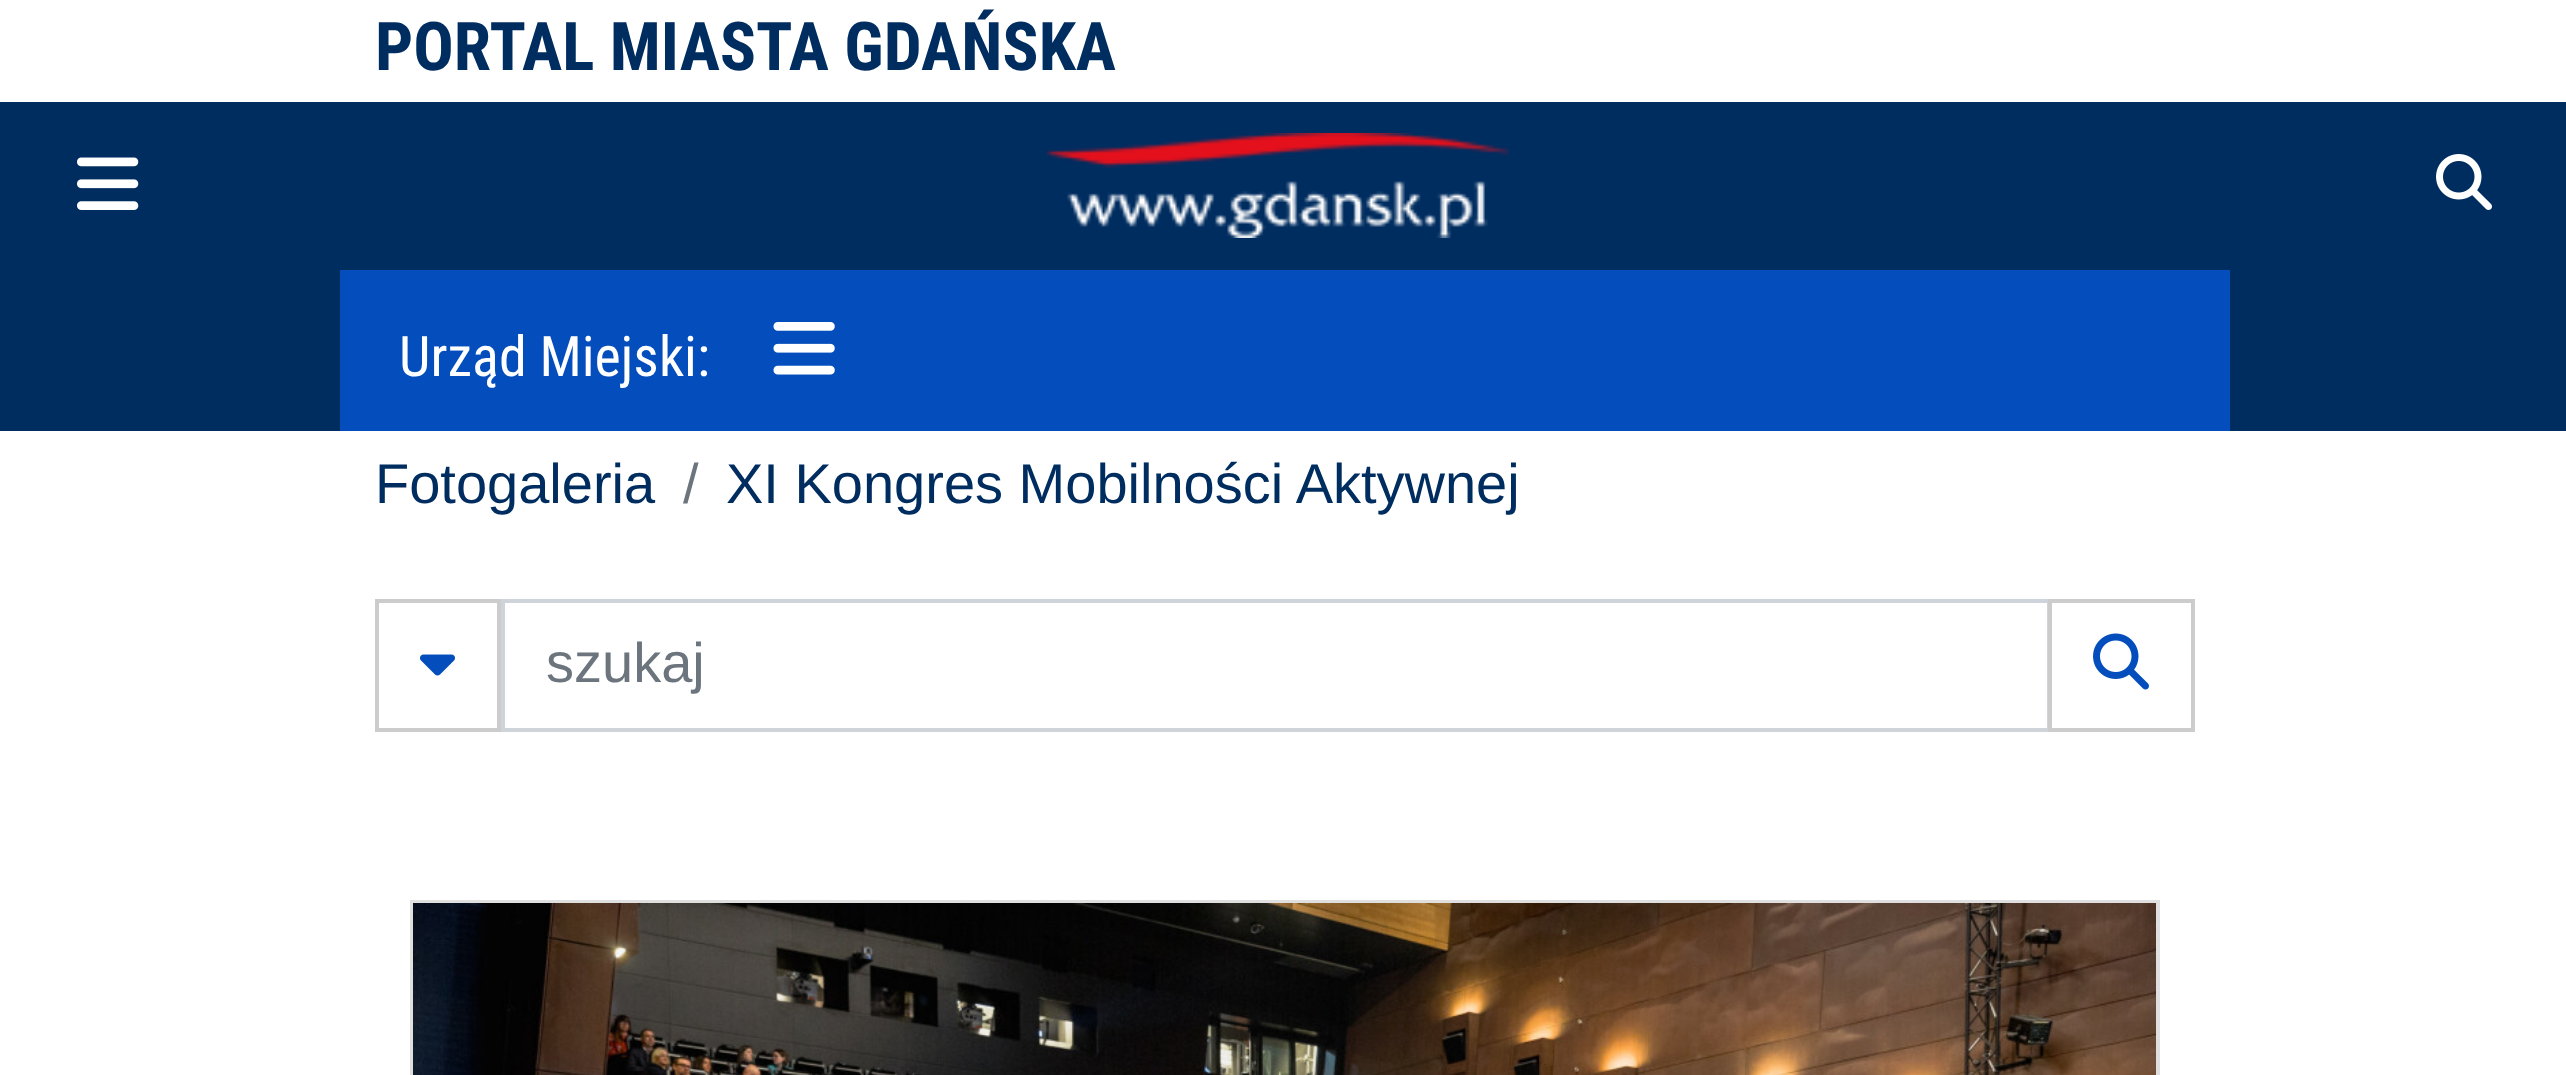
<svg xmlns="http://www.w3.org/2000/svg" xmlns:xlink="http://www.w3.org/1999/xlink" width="2566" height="1075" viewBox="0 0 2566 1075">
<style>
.cls-1{font:bold 67.25px Roboto Condensed;fill:#002d60}
.cls-2{font:56px Roboto Condensed;fill:#ffffff}
.cls-3{font:56px Liberation Sans;fill:#002d60}
.cls-4{font:56px Liberation Sans;fill:#6c757d}
</style>
<rect width="100%" height="100%" fill="#ffffff"/>
<rect fill="#002d60" x="0" y="102" width="2566" height="329"/>
<image xlink:href="image0.png" x="77" y="157" width="62" height="53"/>
<image xlink:href="image1.png" x="1046" y="133" width="463" height="105"/>
<image xlink:href="image2.png" x="2436" y="154" width="56" height="56"/>
<rect fill="#034ebc" x="340" y="270" width="1890" height="161"/>
<image xlink:href="image3.png" x="773" y="322" width="62" height="53"/>
<rect fill="none" stroke="#cccccc" stroke-width="4" x="377" y="601" width="122" height="129"/>
<image xlink:href="image4.png" x="420" y="654" width="35" height="22"/>
<rect fill="none" stroke="#ced4da" stroke-width="4" x="503" y="601" width="1546" height="129"/>
<rect fill="none" stroke="#cccccc" stroke-width="4" x="2050" y="601" width="143" height="129"/>
<image xlink:href="image5.png" x="2093" y="633" width="56" height="57"/>
<rect fill="none" stroke="#dfdfdf" stroke-width="4" x="412" y="902" width="1746" height="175"/>
<image xlink:href="image6.png" x="413" y="903" width="1743" height="172"/>
<text class="cls-1" x="375" y="70">PORTAL MIASTA GDAŃSKA</text>
<text class="cls-2" x="399" y="376">Urząd Miejski:</text>
<text class="cls-3" x="375" y="503">Fotogaleria</text>
<text class="cls-4" x="683" y="503">/</text>
<text class="cls-3" x="726" y="503">XI Kongres Mobilności Aktywnej</text>
<text class="cls-4" x="546" y="682">szukaj</text>
</svg>
